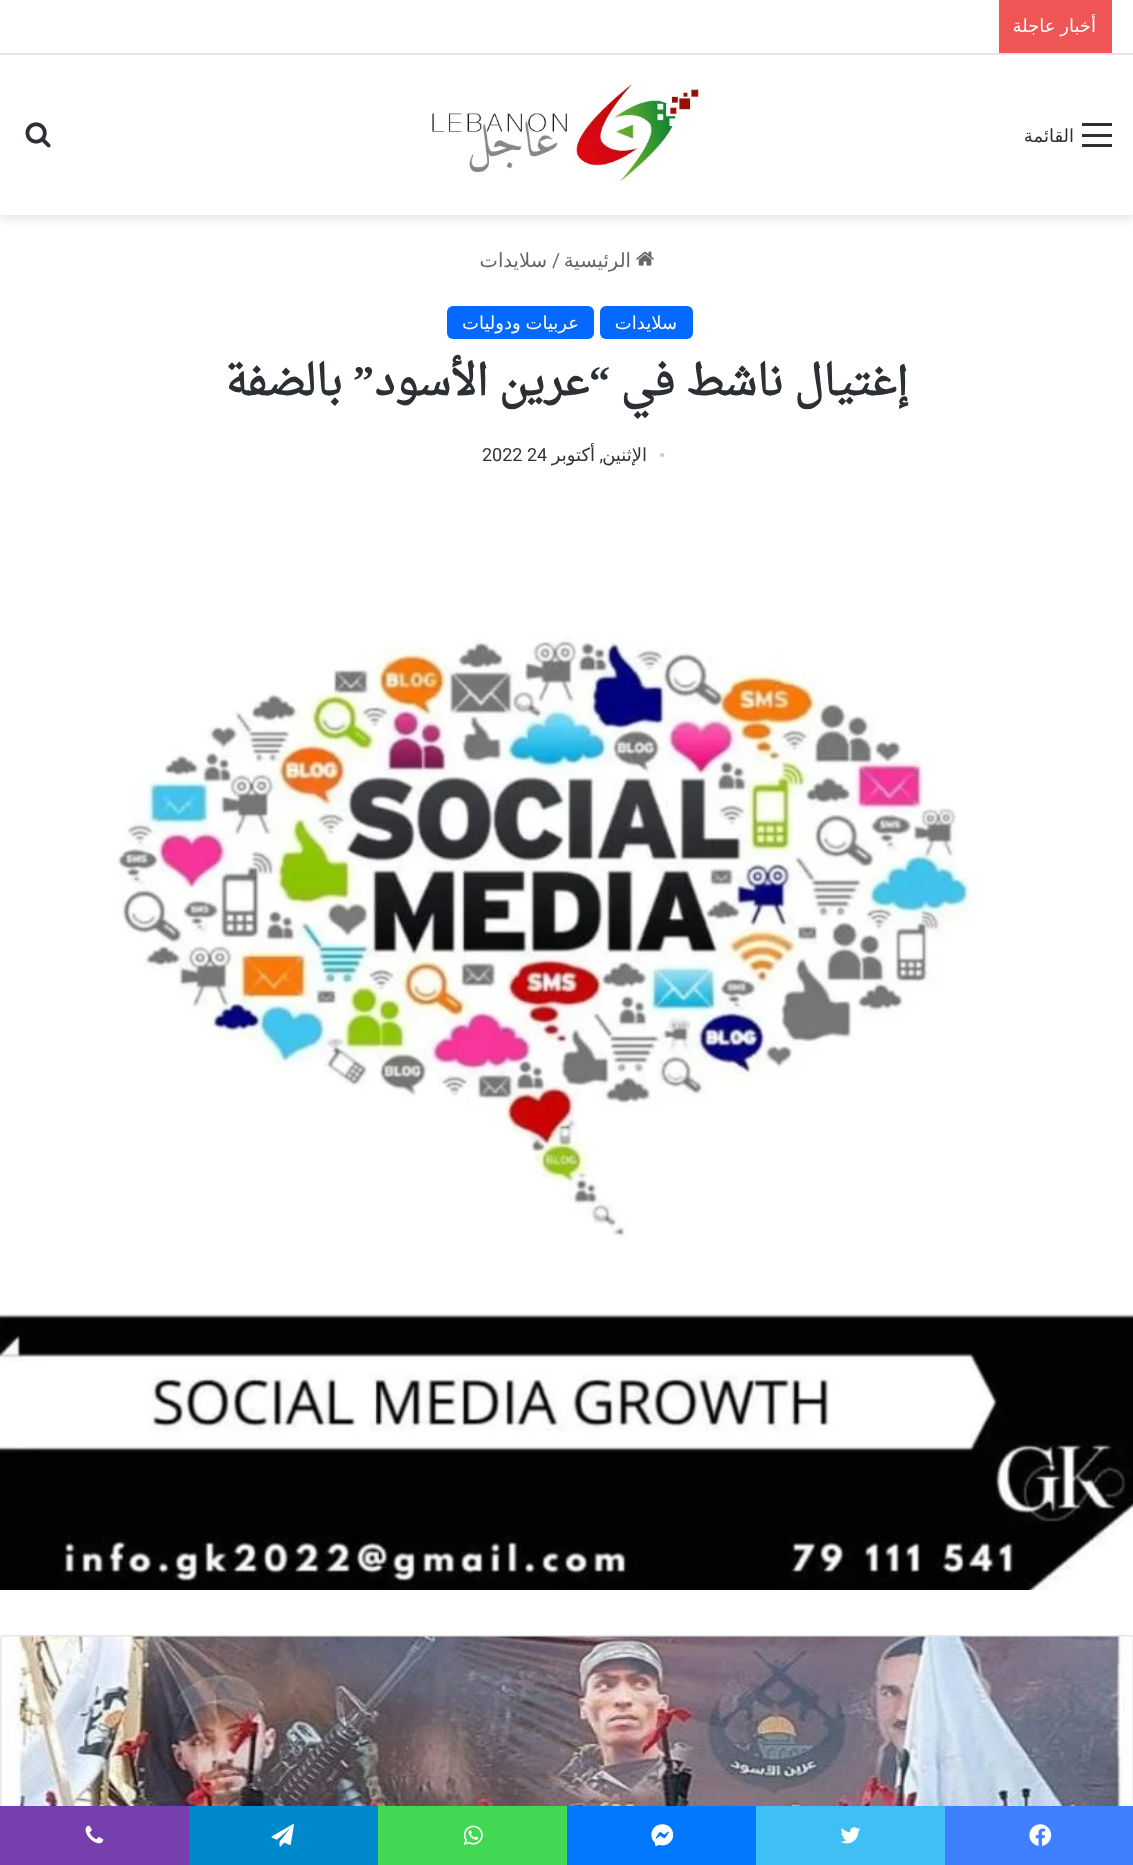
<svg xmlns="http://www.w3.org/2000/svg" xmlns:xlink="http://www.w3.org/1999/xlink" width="1133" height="1865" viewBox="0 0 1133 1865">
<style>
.cls-1{font:18px DejaVu Sans;direction:rtl;fill:#ffffff}
.cls-2{font:18px DejaVu Sans;direction:rtl;fill:#2c2f34}
.cls-3{font:19.5px DejaVu Sans;direction:rtl;fill:#666666}
.cls-4{font:19.5px Roboto;fill:#666666}
.cls-5{font:bold 42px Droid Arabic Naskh;direction:rtl;fill:#2c2f34}
.cls-6{font:bold 42px Liberation Serif;direction:rtl;fill:#2c2f34}
.cls-7{font:18px Liberation Serif;fill:#cccccc}
.cls-8{font:18px DejaVu Sans;direction:rtl;fill:#333333}
.cls-9{font:18px Roboto;fill:#333333}
.cls-10{font:18px Roboto;direction:rtl;fill:#333333}
</style>
<rect width="100%" height="100%" fill="#ffffff"/>
<rect fill="#000000" fill-opacity="0.1" filter="blur(5px)" x="0" y="59" width="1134" height="160"/>
<rect fill="#e6e6e6" x="0" y="53" width="1133" height="2"/>
<rect fill="#f05555" x="999" y="0" width="113" height="53"/>
<rect fill="#ffffff" x="0" y="55" width="1133" height="160"/>
<rect fill="#2c2f34" x="1082" y="134" width="30" height="3"/>
<rect fill="#2c2f34" x="1082" y="123" width="30" height="3"/>
<rect fill="#2c2f34" x="1082" y="144" width="30" height="3"/>
<image xlink:href="image0.png" x="432" y="81" width="268" height="104"/>
<image xlink:href="image1.png" x="25" y="122" width="26" height="26"/>
<image xlink:href="image2.png" x="636" y="251" width="18" height="15"/>
<rect fill="#0669ff" x="600" y="306" width="93" height="33" rx="6"/>
<rect fill="#0669ff" x="447" y="306" width="147" height="33" rx="6"/>
<image xlink:href="image3.png" x="0" y="635" width="1133" height="955"/>
<rect fill="none" stroke="#e6e6e6" stroke-width="2" x="1" y="1636" width="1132" height="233" rx="2"/>
<image xlink:href="image4.png" x="1" y="1636" width="1132" height="170"/>
<rect fill="#4080ff" x="945" y="1806" width="188" height="59"/>
<image xlink:href="image5.png" x="1029" y="1824" width="23" height="22"/>
<rect fill="#40bff5" x="756" y="1806" width="189" height="59"/>
<image xlink:href="image6.png" x="840" y="1827" width="21" height="17"/>
<rect fill="#0078ff" x="567" y="1806" width="189" height="59"/>
<image xlink:href="image7.png" x="651" y="1824" width="23" height="22"/>
<rect fill="#43d854" x="378" y="1806" width="189" height="59"/>
<image xlink:href="image8.png" x="463" y="1825" width="20" height="20"/>
<rect fill="#0088cc" x="189" y="1806" width="189" height="59"/>
<image xlink:href="image9.png" x="271" y="1824" width="23" height="23"/>
<rect fill="#773ead" x="0" y="1806" width="189" height="59"/>
<image xlink:href="image10.png" x="85" y="1825" width="19" height="19"/>
<text class="cls-1" x="1096" y="32" word-spacing="-1">أخبار عاجلة</text>
<text class="cls-2" x="1074" y="142">القائمة</text>
<text class="cls-3" x="631" y="267">الرئيسية</text>
<text class="cls-4" x="552" y="267">/</text>
<text class="cls-3" x="547" y="267">سلايدات</text>
<text class="cls-1" x="677" y="329">سلايدات</text>
<text class="cls-1" x="579" y="329" word-spacing="-1">عربيات ودوليات</text>
<text class="cls-5" x="909" y="395">إغتيال ناشط في</text>
<text class="cls-6" x="610" y="395">“</text>
<text class="cls-5" x="589" y="395">عرين الأسود</text>
<text class="cls-6" x="374" y="395">”</text>
<text class="cls-5" x="342" y="395">بالضفة</text>
<text class="cls-7" x="659" y="461">•</text>
<text class="cls-8" x="647" y="461">الإثنين</text>
<text class="cls-8" x="595" y="461">أكتوبر</text>
<text class="cls-9" x="482" y="461">2022 24</text>
<text class="cls-10" x="603" y="461">,</text>
</svg>
